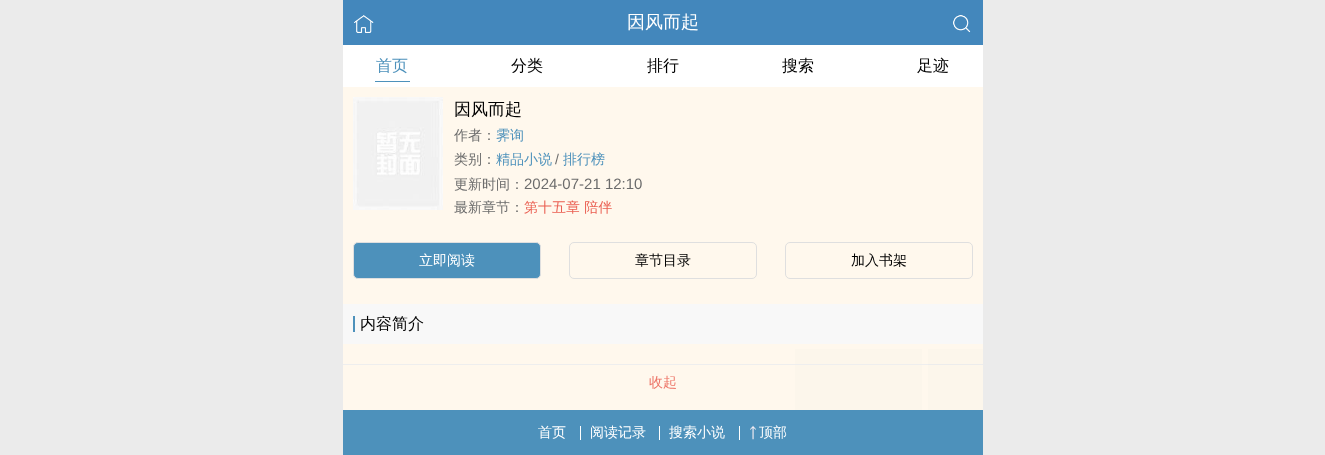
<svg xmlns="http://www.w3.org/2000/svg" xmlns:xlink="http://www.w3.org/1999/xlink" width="1325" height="455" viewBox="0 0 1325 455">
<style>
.cls-1{font:500 18px WenQuanYi Zen Hei;fill:#ffffff}
.cls-2{font:500 16px WenQuanYi Zen Hei;fill:#4d91bb}
.cls-3{font:500 16px WenQuanYi Zen Hei;fill:#000000}
.cls-4{font:500 17px WenQuanYi Zen Hei;fill:#000000}
.cls-5{font:500 14px WenQuanYi Zen Hei;fill:#6c6c6c}
.cls-6{font:500 14px WenQuanYi Zen Hei;fill:#4d91bb}
.cls-7{font:14px Liberation Sans;fill:#6c6c6c}
.cls-8{font:15px Liberation Sans;fill:#6c6c6c}
.cls-9{font:500 14px WenQuanYi Zen Hei;fill:#ea5e51}
.cls-10{font:500 14px WenQuanYi Zen Hei;fill:#ffffff}
.cls-11{font:500 14px WenQuanYi Zen Hei;fill:#000000}
.cls-12{font:500 14px WenQuanYi Zen Hei;fill:#ed7568}
</style>
<rect width="100%" height="100%" fill="#ebebeb"/>
<rect fill="#fff8ed" x="343" y="87" width="640" height="323"/>
<rect fill="#fcf6eb" x="928" y="365" width="55" height="45"/>
<rect fill="#fcf6eb" x="795" y="365" width="127" height="45"/>
<rect fill="#4387bc" x="343" y="0" width="640" height="45"/>
<image xlink:href="image0.png" x="354" y="15" width="20" height="18"/>
<image xlink:href="image1.png" x="953" y="15" width="18" height="18"/>
<rect fill="#ffffff" x="343" y="45" width="640" height="42"/>
<rect fill="#4d91bb" x="375" y="81" width="35" height="1"/>
<image xlink:href="image2.png" x="353" y="97" width="90" height="113"/>
<rect fill="#4d91bb" stroke="#dfdfdf" x="353.5" y="242.5" width="187" height="36" rx="4.5"/>
<rect fill="none" stroke="#dfdfdf" x="569.5" y="242.5" width="187" height="36" rx="4.5"/>
<rect fill="none" stroke="#dfdfdf" x="785.5" y="242.5" width="187" height="36" rx="4.5"/>
<rect fill="#f8f8f8" x="343" y="304" width="640" height="40"/>
<rect fill="#4d91bb" x="353" y="316" width="2" height="16"/>
<rect fill="#fcf6eb" x="928" y="349" width="55" height="15"/>
<rect fill="#fcf6eb" x="795" y="349" width="127" height="15"/>
<rect fill="#eeeeee" x="343" y="364" width="585" height="1"/>
<rect fill="#ececec" x="928" y="364" width="55" height="1"/>
<rect fill="#4d91bb" x="343" y="410" width="640" height="45"/>
<rect fill="#ffffff" x="580" y="426" width="1" height="14"/>
<rect fill="#ffffff" x="659" y="426" width="1" height="14"/>
<rect fill="#ffffff" x="739" y="426" width="1" height="14"/>
<image xlink:href="image3.png" x="750" y="425" width="6" height="15"/>
<text class="cls-1" x="627" y="28">因风而起</text>
<text class="cls-2" x="376" y="71">首页</text>
<text class="cls-3" x="511" y="71">分类</text>
<text class="cls-3" x="647" y="71">排行</text>
<text class="cls-3" x="782" y="71">搜索</text>
<text class="cls-3" x="917" y="71">足迹</text>
<text class="cls-4" x="454" y="115">因风而起</text>
<text class="cls-5" x="454" y="140">作者：</text>
<text class="cls-6" x="496" y="140">霁询</text>
<text class="cls-5" x="454" y="164">类别：</text>
<text class="cls-6" x="496" y="164">精品小说</text>
<text class="cls-7" x="555" y="164">/</text>
<text class="cls-6" x="563" y="164">排行榜</text>
<text class="cls-5" x="454" y="189">更新时间：</text>
<text class="cls-8" x="524" y="189">2024-07-21 12:10</text>
<text class="cls-5" x="454" y="212">最新章节：</text>
<text class="cls-9" x="524" y="212">第十五章 陪伴</text>
<text class="cls-10" x="419" y="265">立即阅读</text>
<text class="cls-11" x="635" y="265">章节目录</text>
<text class="cls-11" x="851" y="265">加入书架</text>
<text class="cls-3" x="360" y="329">内容简介</text>
<text class="cls-12" x="649" y="387">收起</text>
<text class="cls-10" x="538" y="437">首页</text>
<text class="cls-10" x="590" y="437">阅读记录</text>
<text class="cls-10" x="669" y="437">搜索小说</text>
<text class="cls-10" x="759" y="437">顶部</text>
</svg>
